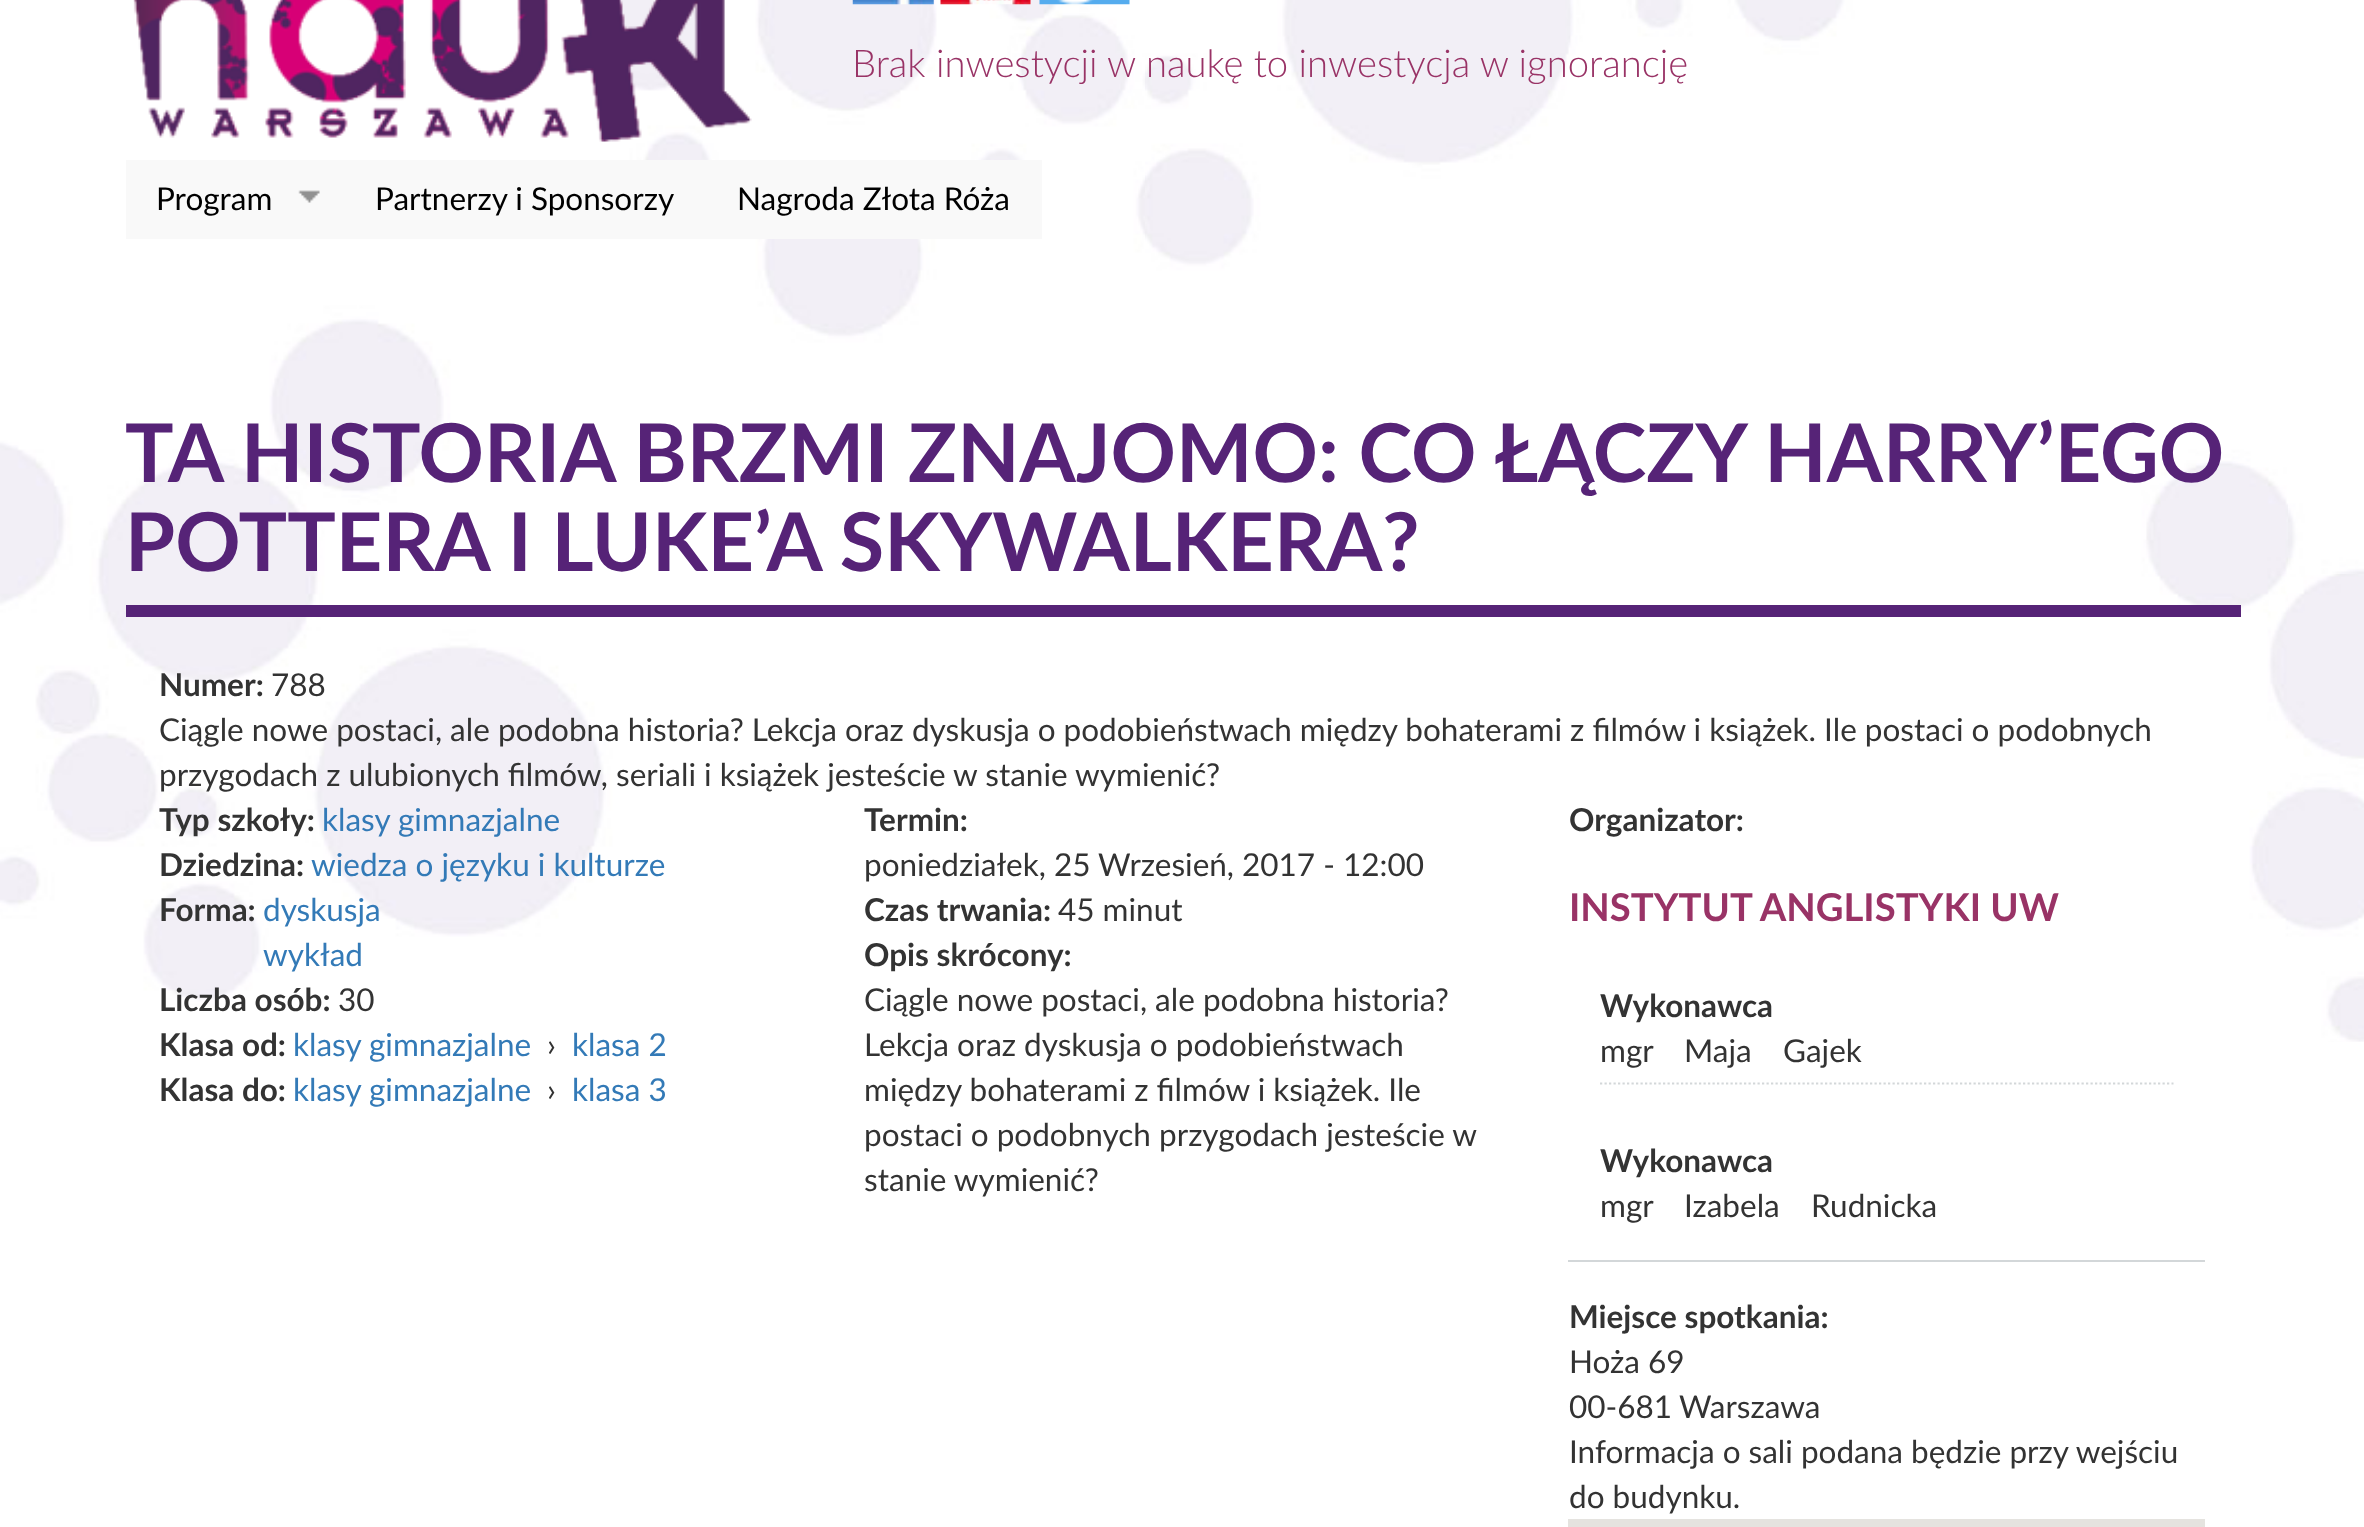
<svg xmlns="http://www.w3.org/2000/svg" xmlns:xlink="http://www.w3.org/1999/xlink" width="2364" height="1527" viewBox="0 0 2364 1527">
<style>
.cls-1{font:300 38.25px Lato;fill:#993366}
.cls-2{font:31.5px Lato;fill:#000000}
.cls-3{font:bold 81px Lato;fill:#562377}
.cls-4{font:bold 31.5px Lato;fill:#333333}
.cls-5{font:31.5px Lato;fill:#333333}
.cls-6{font:31.5px Lato;fill:#337ab7}
.cls-7{font:bold 38.25px Lato;fill:#993366}
</style>
<rect width="100%" height="100%" fill="#ffffff"/>
<image xlink:href="image0.png" x="0" y="0" width="2364" height="1042"/>
<image xlink:href="image1.png" x="133" y="0" width="619" height="142"/>
<image xlink:href="image2.png" x="852" y="0" width="82" height="5"/>
<image xlink:href="image3.png" x="940" y="0" width="91" height="5"/>
<image xlink:href="image4.png" x="1039" y="0" width="91" height="5"/>
<rect fill="#f9f9f9" x="126" y="160" width="916" height="79"/>
<image xlink:href="image5.png" x="298" y="190" width="22" height="13"/>
<rect fill="#562377" x="126" y="605" width="2115" height="12"/>
<rect fill="#d3d7d9" x="1568" y="1260" width="637" height="2"/>
<path fill="none" stroke="#d3d7d9" stroke-width="2.2" stroke-dasharray="2.25 2.25" d="M1600 1083.5H2173.5"/>
<rect fill="#e5e3df" x="1568" y="1519" width="637" height="8"/>
<text class="cls-1" x="852" y="77">Brak inwestycji w naukę to inwestycja w ignorancję</text>
<text class="cls-2" x="156" y="210">Program</text>
<text class="cls-2" x="375" y="210">Partnerzy i Sponsorzy</text>
<text class="cls-2" x="737" y="210">Nagroda Złota Róża</text>
<text class="cls-3"><tspan x="125" y="482">TA HISTORIA BRZMI ZNAJOMO: CO ŁĄCZY HARRY’EGO</tspan><tspan x="125" y="571">POTTERA I LUKE’A SKYWALKERA?</tspan></text>
<text class="cls-4" x="159" y="696">Numer:</text>
<text class="cls-5" x="271" y="696">788</text>
<text class="cls-5"><tspan x="159" y="741">Ciągle nowe postaci, ale podobna historia? Lekcja oraz dyskusja o podobieństwach między bohaterami z filmów i książek. Ile postaci o podobnych</tspan><tspan x="159" y="786">przygodach z ulubionych filmów, seriali i książek jesteście w stanie wymienić?</tspan></text>
<text class="cls-4" x="159" y="831">Typ szkoły:</text>
<text class="cls-6" x="322" y="831">klasy gimnazjalne</text>
<text class="cls-4" x="159" y="876">Dziedzina:</text>
<text class="cls-6" x="311" y="876">wiedza o języku i kulturze</text>
<text class="cls-4" x="159" y="921">Forma:</text>
<text class="cls-6"><tspan x="263" y="921">dyskusja</tspan><tspan x="263" y="966">wykład</tspan></text>
<text class="cls-4" x="159" y="1011">Liczba osób:</text>
<text class="cls-5" x="338" y="1011">30</text>
<text class="cls-4" x="159" y="1056">Klasa od:</text>
<text class="cls-6" x="293" y="1056">klasy gimnazjalne</text>
<text class="cls-5" x="547" y="1056">›</text>
<text class="cls-6" x="572" y="1056">klasa 2</text>
<text class="cls-4" x="159" y="1101">Klasa do:</text>
<text class="cls-6" x="293" y="1101">klasy gimnazjalne</text>
<text class="cls-5" x="547" y="1101">›</text>
<text class="cls-6" x="572" y="1101">klasa 3</text>
<text class="cls-4" x="864" y="831">Termin:</text>
<text class="cls-5" x="864" y="876">poniedziałek, 25 Wrzesień, 2017 - 12:00</text>
<text class="cls-4" x="864" y="921">Czas trwania:</text>
<text class="cls-5" x="1058" y="921">45 minut</text>
<text class="cls-4" x="864" y="966">Opis skrócony:</text>
<text class="cls-5"><tspan x="864" y="1011">Ciągle nowe postaci, ale podobna historia?</tspan><tspan x="864" y="1056">Lekcja oraz dyskusja o podobieństwach</tspan><tspan x="864" y="1101">między bohaterami z filmów i książek. Ile</tspan><tspan x="864" y="1146">postaci o podobnych przygodach jesteście w</tspan><tspan x="864" y="1191">stanie wymienić?</tspan></text>
<text class="cls-4" x="1569" y="831">Organizator:</text>
<text class="cls-7" x="1569" y="921">INSTYTUT ANGLISTYKI UW</text>
<text class="cls-4" x="1600" y="1017">Wykonawca</text>
<text class="cls-5" x="1600" y="1062">mgr</text>
<text class="cls-5" x="1684" y="1062">Maja</text>
<text class="cls-5" x="1783" y="1062">Gajek</text>
<text class="cls-4" x="1600" y="1172">Wykonawca</text>
<text class="cls-5" x="1600" y="1217">mgr</text>
<text class="cls-5" x="1684" y="1217">Izabela</text>
<text class="cls-5" x="1811" y="1217">Rudnicka</text>
<text class="cls-4" x="1569" y="1328">Miejsce spotkania:</text>
<text class="cls-5"><tspan x="1569" y="1373">Hoża 69</tspan><tspan x="1569" y="1418">00-681</tspan></text>
<text class="cls-5" x="1679" y="1418">Warszawa</text>
<text class="cls-5"><tspan x="1569" y="1463">Informacja o sali podana będzie przy wejściu</tspan><tspan x="1569" y="1508">do budynku.</tspan></text>
</svg>
